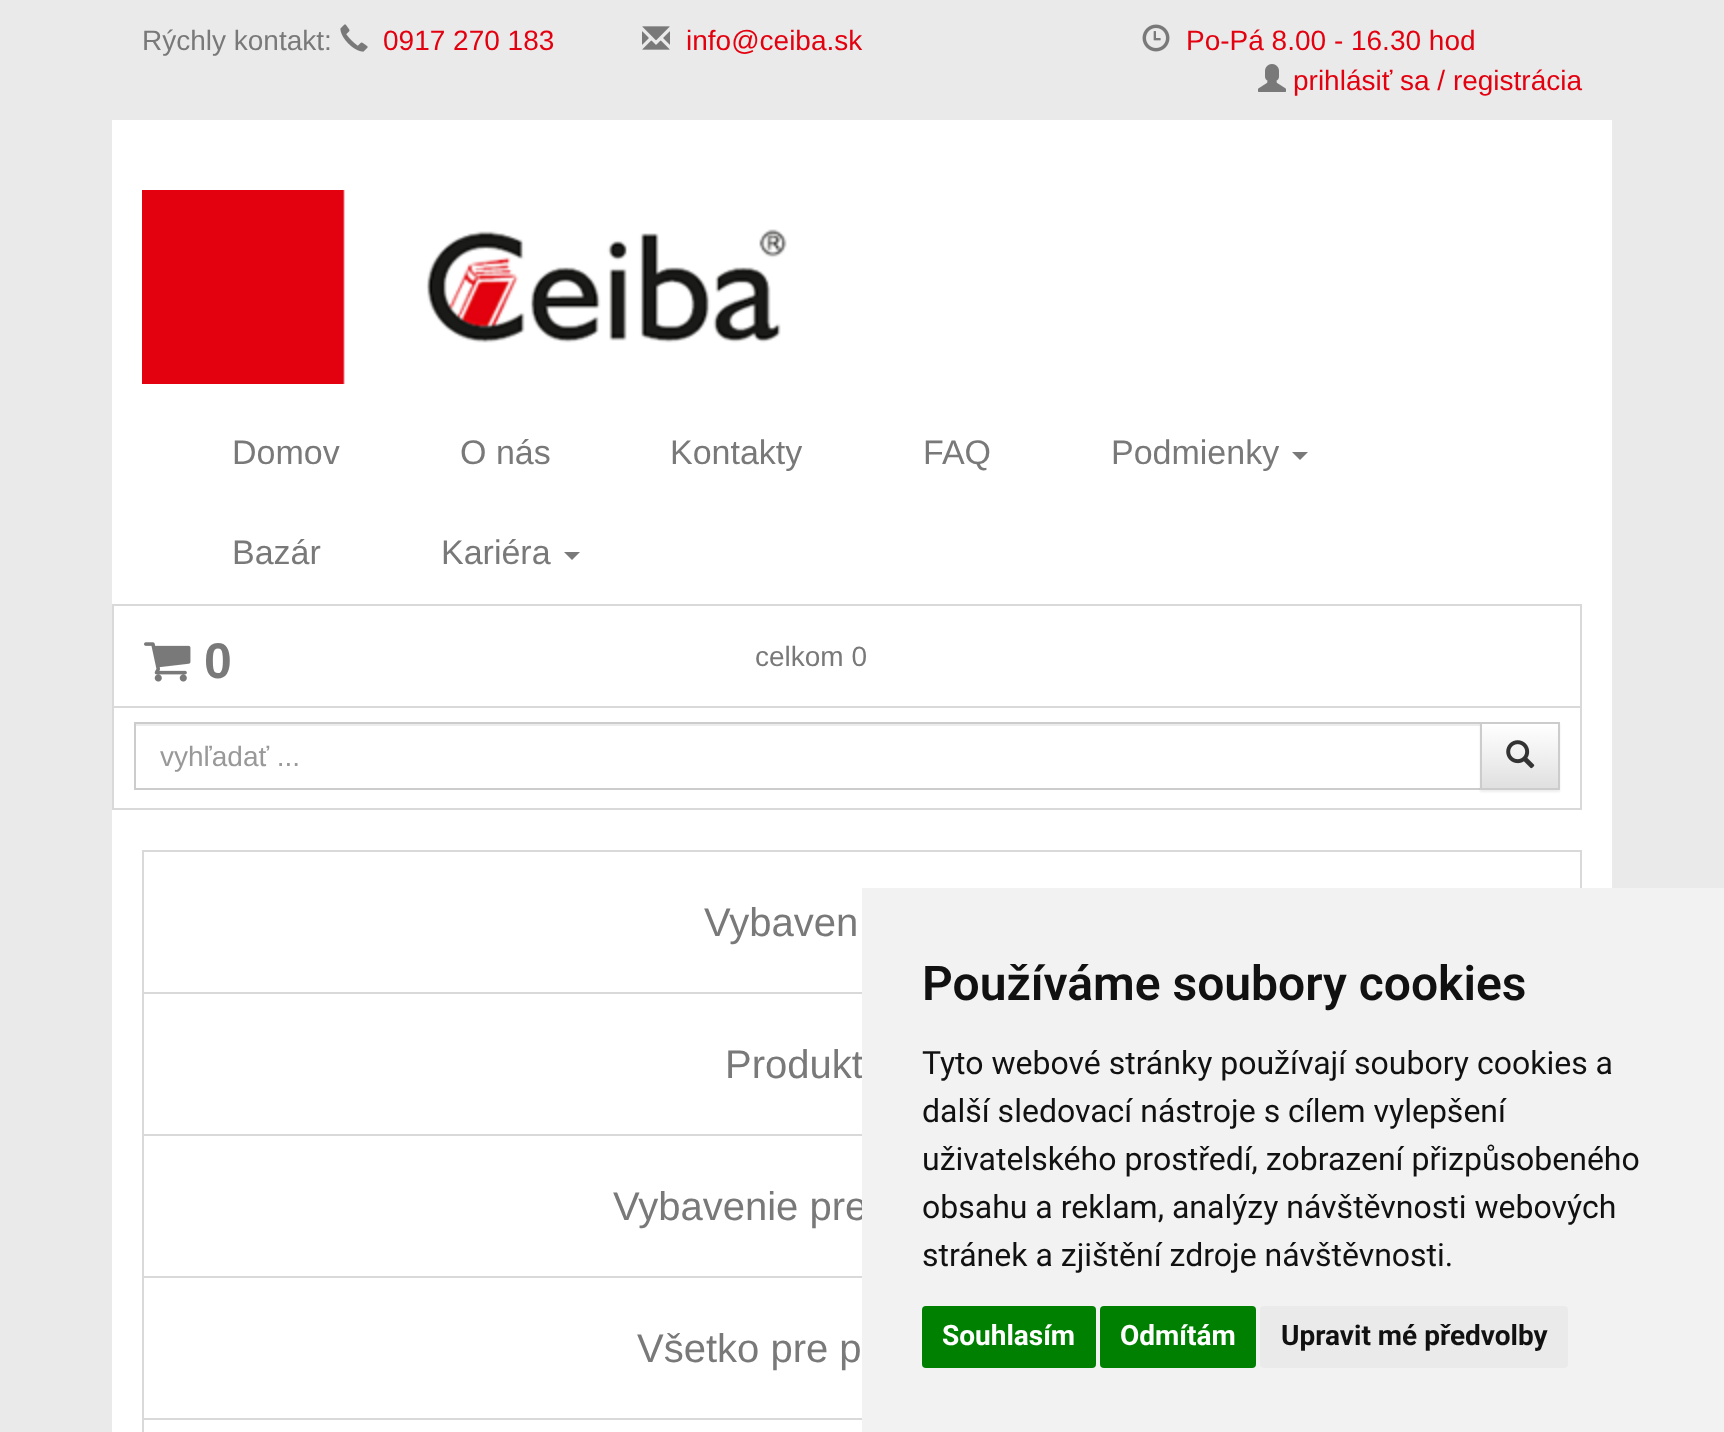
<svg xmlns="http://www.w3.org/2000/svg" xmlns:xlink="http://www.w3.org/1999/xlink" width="1724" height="1432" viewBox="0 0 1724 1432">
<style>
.cls-1{font:28px Liberation Sans;fill:#797979}
.cls-2{font:28px Liberation Sans;fill:#e3000f}
.cls-3{font:34px Liberation Sans;fill:#797979}
.cls-4{font:bold 50px Liberation Sans;fill:#797979}
.cls-5{font:28px Liberation Sans;fill:#999999}
.cls-6{font:40px Liberation Sans;fill:#797979}
.cls-7{font:600 48px Roboto;fill:#111111}
.cls-8{font:32px Roboto;fill:#111111}
.cls-9{font:bold 28px Roboto;fill:#ffffff}
.cls-10{font:bold 28px Roboto;fill:#111111}
</style>
<defs>
<linearGradient id="g1" gradientUnits="userSpaceOnUse" x1="1520" y1="724" x2="1520" y2="788"><stop offset="0" stop-color="#ffffff"/><stop offset="1" stop-color="#e0e0e0"/></linearGradient>
</defs>
<rect width="100%" height="100%" fill="#eaeaea"/>
<image xlink:href="image0.png" x="340" y="24" width="28" height="28"/>
<image xlink:href="image1.png" x="642" y="26" width="28" height="24"/>
<image xlink:href="image2.png" x="1142" y="24" width="28" height="28"/>
<image xlink:href="image3.png" x="1258" y="64" width="28" height="28"/>
<rect fill="#ffffff" x="112" y="120" width="1500" height="1312"/>
<image xlink:href="image4.png" x="142" y="190" width="645" height="194"/>
<path fill="#797979" d="M1292 452H1308L1300 460Z"/>
<path fill="#797979" d="M564 552H580L572 560Z"/>
<rect fill="none" stroke="#d9d9d9" stroke-width="2" x="113" y="605" width="1468" height="102"/>
<image xlink:href="image5.png" x="144" y="642" width="47" height="40"/>
<rect fill="#d9d9d9" x="1580" y="708" width="2" height="102"/>
<rect fill="#d9d9d9" x="112" y="808" width="1470" height="2"/>
<rect fill="#d9d9d9" x="112" y="708" width="2" height="102"/>
<rect fill="#ececec" x="136" y="724" width="1344" height="2"/>
<rect fill="none" stroke="#cccccc" stroke-width="2" x="135" y="723" width="1346" height="66"/>
<rect fill="#000000" fill-opacity="0.07" filter="blur(1px)" x="1480" y="724" width="80" height="68"/>
<rect fill="url(#g1)" x="1482" y="724" width="76" height="64"/>
<rect fill="none" stroke="#cccccc" stroke-width="2" x="1481" y="723" width="78" height="66"/>
<image xlink:href="image6.png" x="1506" y="740" width="29" height="29"/>
<rect fill="none" stroke="#d9d9d9" stroke-width="2" x="143" y="851" width="1438" height="142"/>
<rect fill="#d9d9d9" x="142" y="1134" width="720" height="2"/>
<rect fill="#d9d9d9" x="142" y="994" width="2" height="142"/>
<rect fill="#d9d9d9" x="142" y="1276" width="720" height="2"/>
<rect fill="#d9d9d9" x="142" y="1136" width="2" height="142"/>
<rect fill="#d9d9d9" x="142" y="1418" width="720" height="2"/>
<rect fill="#d9d9d9" x="142" y="1278" width="2" height="154"/>
<text class="cls-1" x="142" y="50">Rýchly kontakt:</text>
<text class="cls-2" x="383" y="50">0917 270 183</text>
<text class="cls-2" x="686" y="50">info@ceiba.sk</text>
<text class="cls-2" x="1186" y="50">Po-Pá 8.00 - 16.30 hod</text>
<text class="cls-2" x="1293" y="90">prihlásiť sa / registrácia</text>
<text class="cls-3" x="232" y="464">Domov</text>
<text class="cls-3" x="460" y="464">O nás</text>
<text class="cls-3" x="670" y="464">Kontakty</text>
<text class="cls-3" x="923" y="464">FAQ</text>
<text class="cls-3" x="1111" y="464">Podmienky</text>
<text class="cls-3" x="232" y="564">Bazár</text>
<text class="cls-3" x="441" y="564">Kariéra</text>
<text class="cls-4" x="204" y="678">0</text>
<text class="cls-1" x="755" y="666">celkom 0</text>
<text class="cls-5" x="160" y="766">vyhľadať ...</text>
<text class="cls-6" x="704" y="936">Vybaven</text>
<text class="cls-6" x="725" y="1078">Produkt</text>
<text class="cls-6" x="613" y="1220">Vybavenie pre</text>
<text class="cls-6" x="637" y="1362">Všetko pre p</text>
<rect fill="#f2f2f2" x="862" y="888" width="862" height="544"/>
<text class="cls-7" x="922" y="1000">Používáme soubory cookies</text>
<text class="cls-8"><tspan x="922" y="1074">Tyto webové stránky používají soubory cookies a</tspan><tspan x="922" y="1122">další sledovací nástroje s cílem vylepšení</tspan><tspan x="922" y="1170">uživatelského prostředí, zobrazení přizpůsobeného</tspan><tspan x="922" y="1218">obsahu a reklam, analýzy návštěvnosti webových</tspan><tspan x="922" y="1266">stránek a zjištění zdroje návštěvnosti.</tspan></text>
<rect fill="#008000" x="922" y="1306" width="174" height="62" rx="4"/>
<text class="cls-9" x="942" y="1345">Souhlasím</text>
<rect fill="#008000" x="1100" y="1306" width="156" height="62" rx="4"/>
<text class="cls-9" x="1120" y="1345">Odmítám</text>
<rect fill="#eaeaea" x="1260" y="1306" width="308" height="62" rx="4"/>
<text class="cls-10" x="1281" y="1345">Upravit mé předvolby</text>
</svg>
